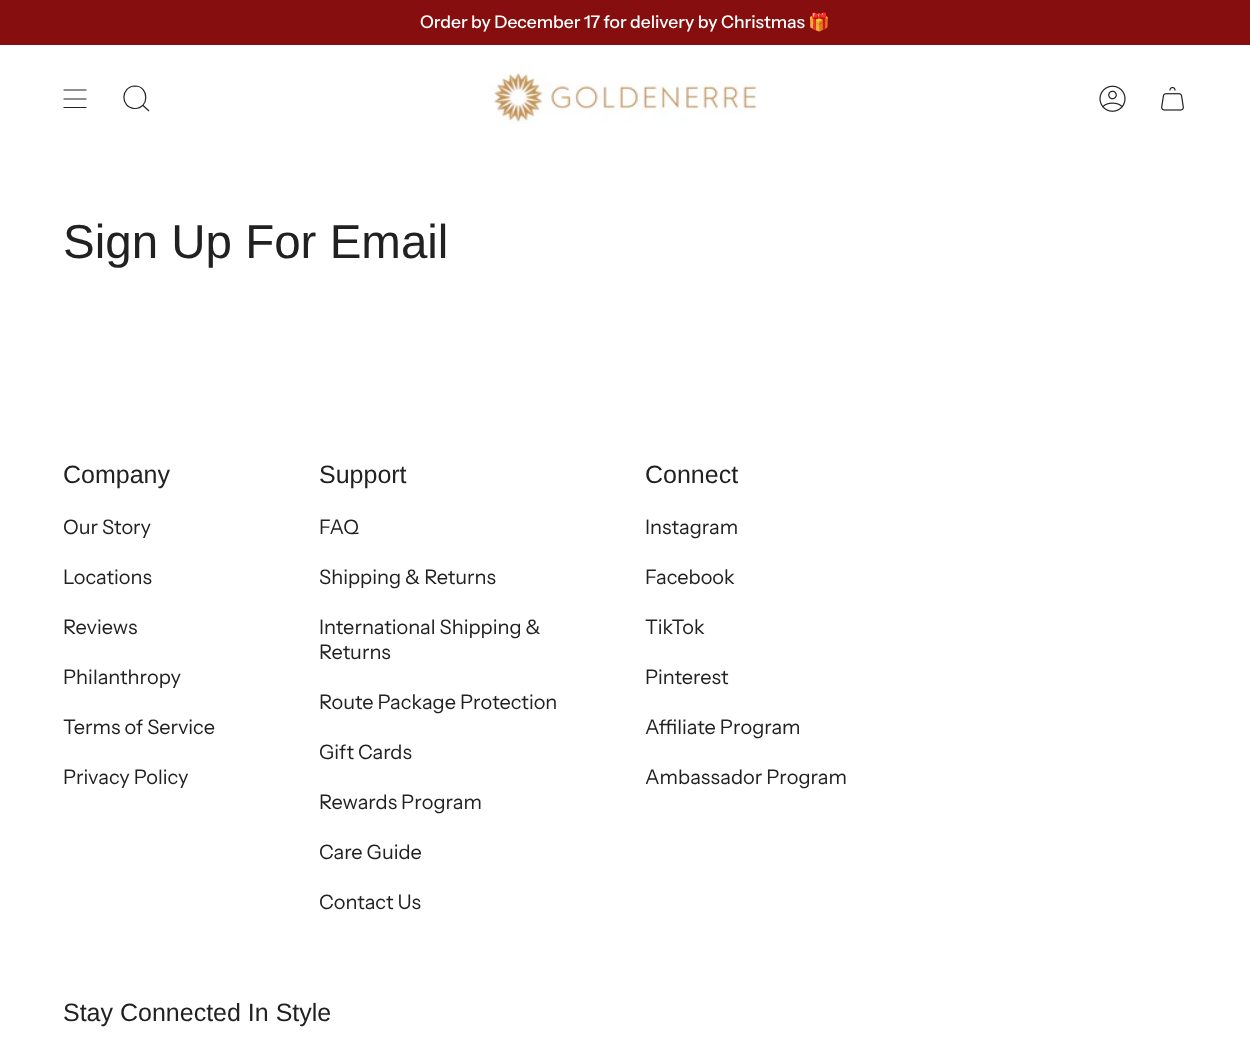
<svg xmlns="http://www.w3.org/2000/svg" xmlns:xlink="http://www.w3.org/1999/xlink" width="1250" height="1050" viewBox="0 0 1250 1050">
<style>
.cls-1{font:500 17.5px Instrument Sans;fill:#ffffff}
.cls-2{font:17.5px Noto Color Emoji;fill:#ffffff}
.cls-3{font:47.5px Liberation Sans;fill:#212121}
.cls-4{font:25px Liberation Sans;fill:#212121}
.cls-5{font:20px Instrument Sans;fill:#212121}
</style>
<rect width="100%" height="100%" fill="#ffffff"/>
<rect fill="#860e0e" x="0" y="0" width="1250" height="45"/>
<path fill="none" stroke="#212121" stroke-width="1.2" stroke-linecap="round" stroke-linejoin="round" d="M64 90H86M64 99H86M64 107.5H86"/>
<path fill="none" stroke="#212121" stroke-width="1.2" d="M135 86C149.5 86 149.5 109 134.5 108.5C120 107.5 120.5 86.5 135 86ZM142.5 105L149 111"/>
<image xlink:href="image0.png" x="488" y="72" width="270" height="52"/>
<image xlink:href="image1.png" x="1099" y="85" width="27" height="27"/>
<image xlink:href="image2.png" x="1161" y="86" width="23" height="25"/>
<text class="cls-1" x="420" y="28">Order by December 17 for delivery by Christmas</text>
<text class="cls-2" x="808" y="28">🎁</text>
<text class="cls-3" x="63" y="258">Sign Up For Email</text>
<text class="cls-4" x="63" y="483">Company</text>
<text class="cls-5" x="63" y="534">Our Story</text>
<text class="cls-5" x="63" y="584">Locations</text>
<text class="cls-5" x="63" y="634">Reviews</text>
<text class="cls-5" x="63" y="684">Philanthropy</text>
<text class="cls-5" x="63" y="734">Terms of Service</text>
<text class="cls-5" x="63" y="784">Privacy Policy</text>
<text class="cls-4" x="319" y="483">Support</text>
<text class="cls-5" x="319" y="534">FAQ</text>
<text class="cls-5" x="319" y="584">Shipping &amp; Returns</text>
<text class="cls-5"><tspan x="319" y="634">International Shipping &amp;</tspan><tspan x="319" y="659">Returns</tspan></text>
<text class="cls-5" x="319" y="709">Route Package Protection</text>
<text class="cls-5" x="319" y="759">Gift Cards</text>
<text class="cls-5" x="319" y="809">Rewards Program</text>
<text class="cls-5" x="319" y="859">Care Guide</text>
<text class="cls-5" x="319" y="909">Contact Us</text>
<text class="cls-4" x="645" y="483">Connect</text>
<text class="cls-5" x="645" y="534">Instagram</text>
<text class="cls-5" x="645" y="584">Facebook</text>
<text class="cls-5" x="645" y="634">TikTok</text>
<text class="cls-5" x="645" y="684">Pinterest</text>
<text class="cls-5" x="645" y="734">Affiliate Program</text>
<text class="cls-5" x="645" y="784">Ambassador Program</text>
<text class="cls-4" x="63" y="1021">Stay Connected In Style</text>
</svg>
